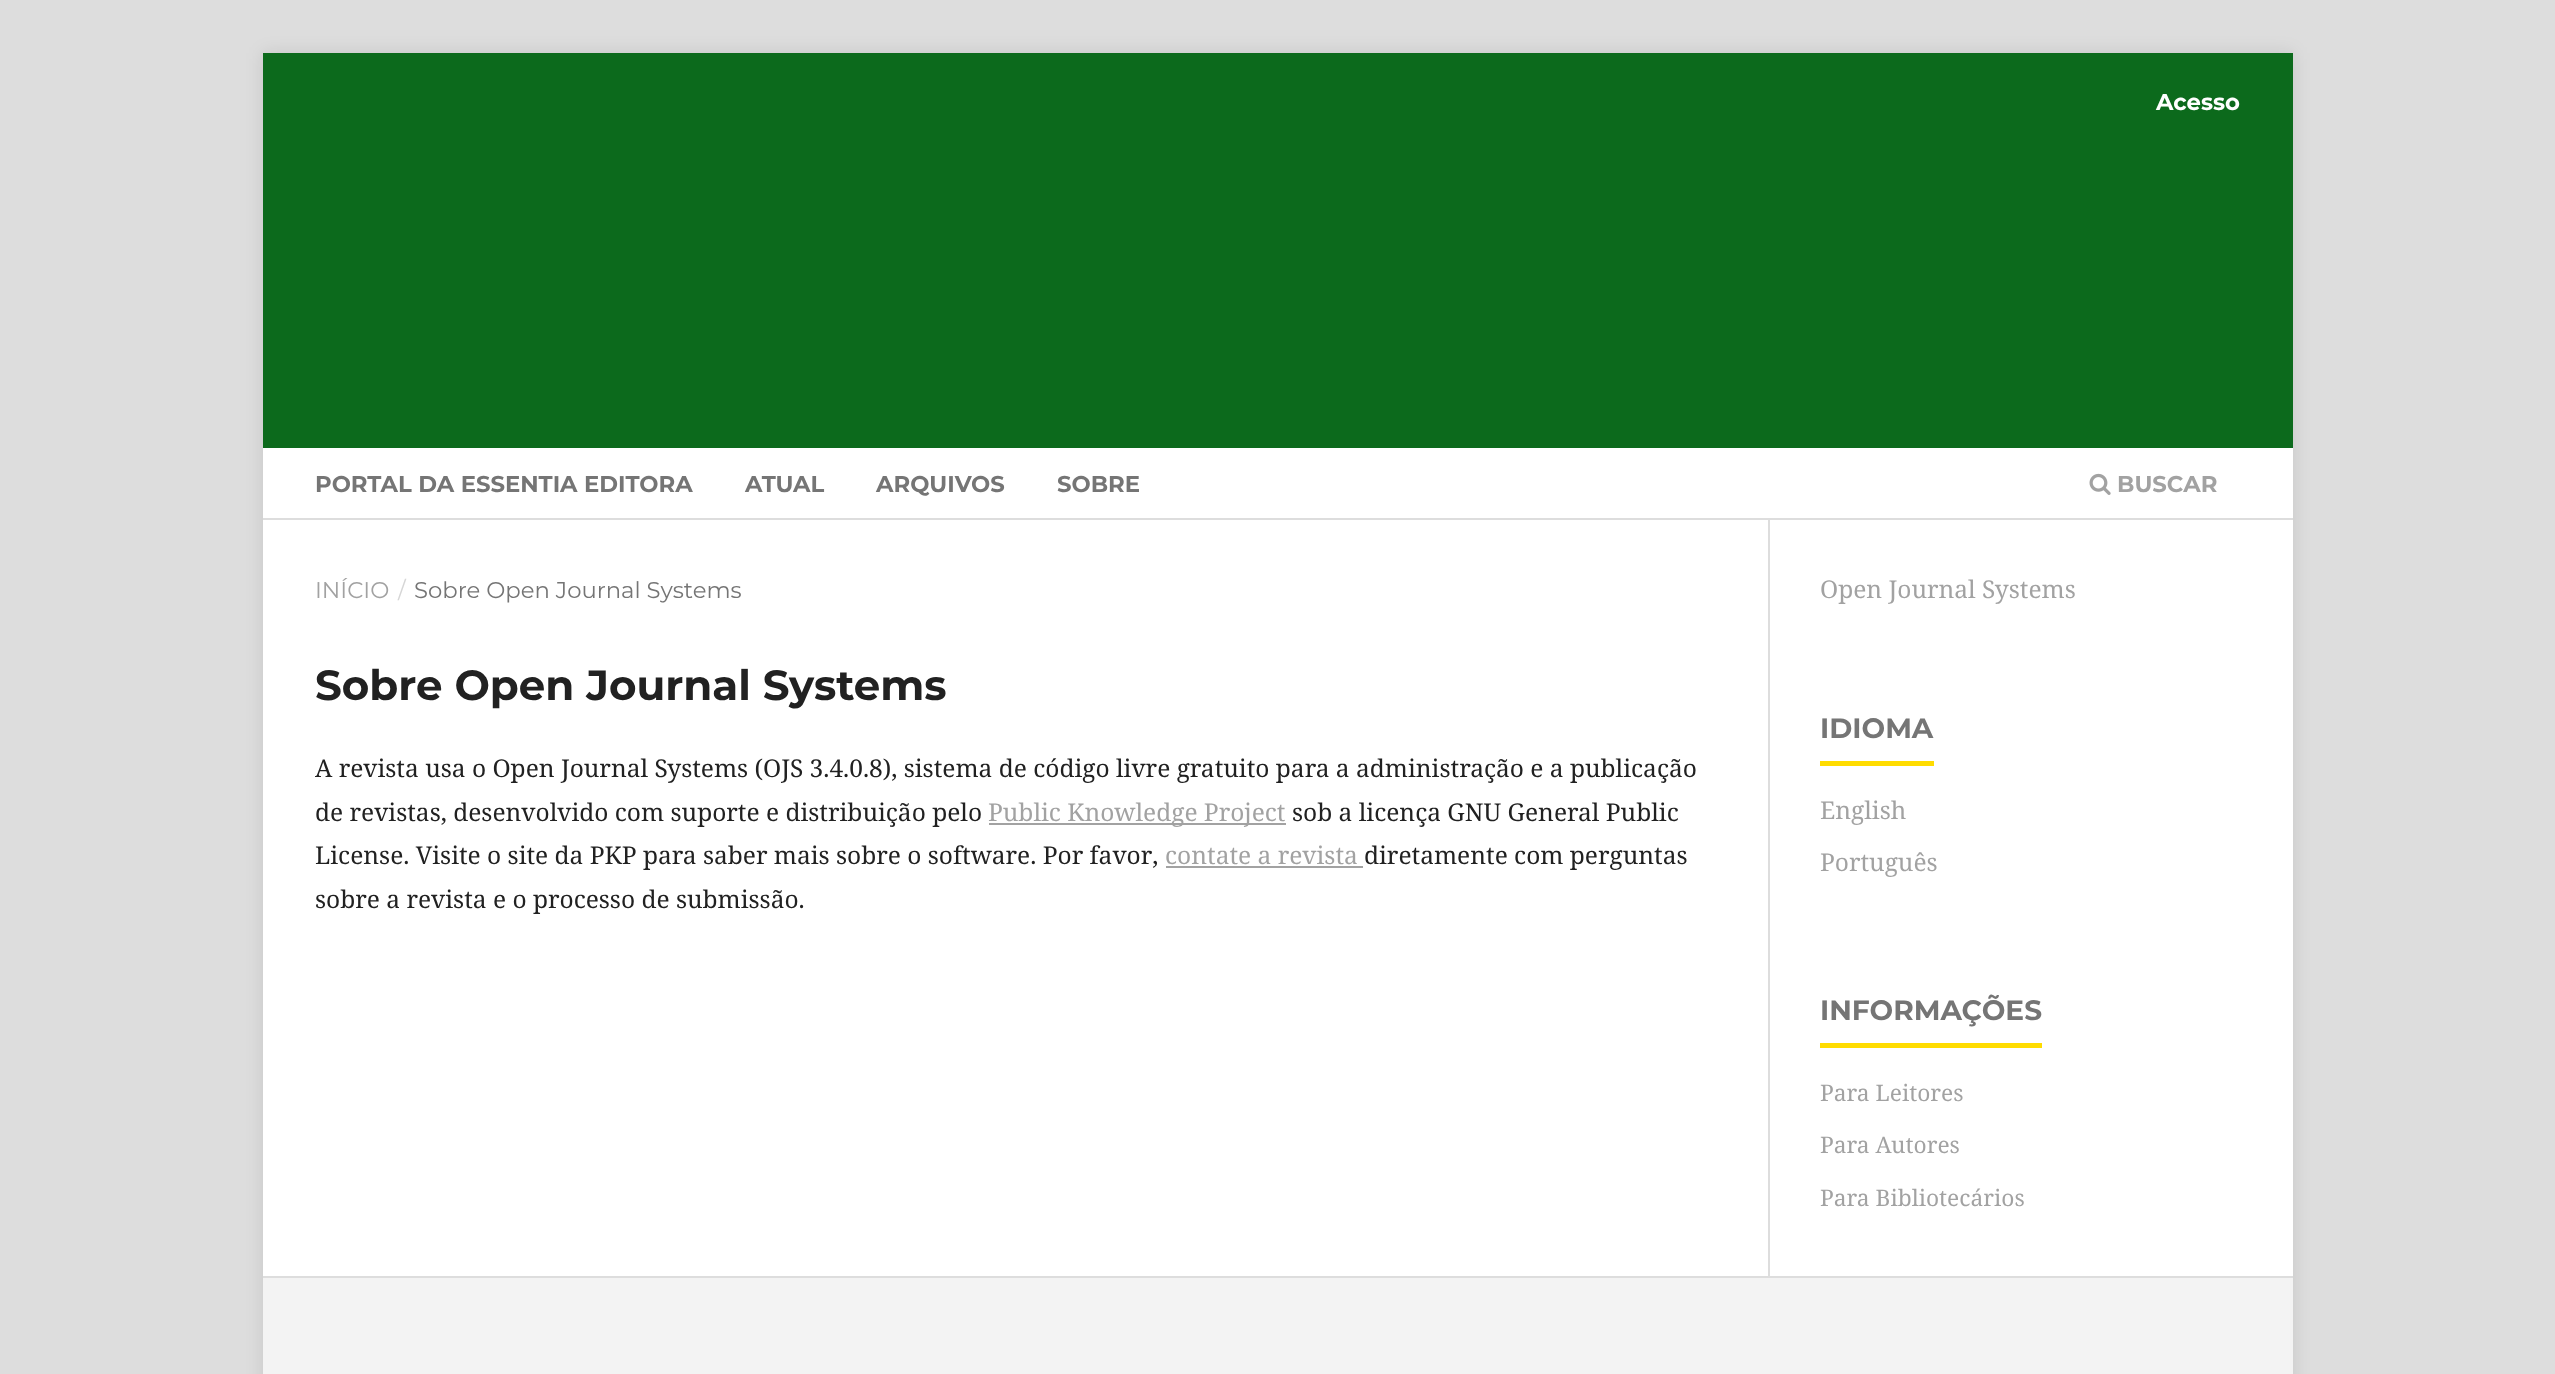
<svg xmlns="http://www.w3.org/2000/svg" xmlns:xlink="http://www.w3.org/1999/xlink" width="2555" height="1374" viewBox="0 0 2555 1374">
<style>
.cls-1{font:bold 22.75px Montserrat;fill:#ffffff}
.cls-2{font:bold 22.75px Montserrat;fill:#757575}
.cls-3{font:bold 22.75px Montserrat;fill:#a2a2a2}
.cls-4{font:22.75px Montserrat;fill:#a2a2a2}
.cls-5{font:22.75px Montserrat;fill:#d6d6d6}
.cls-6{font:22.75px Montserrat;fill:#757575}
.cls-7{font:bold 42px Montserrat;fill:#212121}
.cls-8{font:24.5px Noto Serif;fill:#212121}
.cls-9{font:24.5px Noto Serif;fill:#a2a2a2}
.cls-10{font:bold 28px Montserrat;fill:#757575}
.cls-11{font:22.75px Noto Serif;fill:#a2a2a2}
</style>
<rect width="100%" height="100%" fill="#dddddd"/>
<rect fill="#000000" fill-opacity="0.1" filter="blur(9px)" x="263" y="53" width="2030" height="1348"/>
<rect fill="#ffffff" x="263" y="520" width="2030" height="756"/>
<rect fill="#0c6a1c" x="263" y="53" width="2030" height="395"/>
<rect fill="#dddddd" x="263" y="518" width="2030" height="2"/>
<rect fill="#ffffff" x="263" y="448" width="2030" height="70"/>
<image xlink:href="image0.png" x="2089" y="473" width="22" height="22"/>
<rect fill="#a2a2a2" x="989" y="823" width="297" height="2"/>
<rect fill="#a2a2a2" x="1166" y="866" width="197" height="2"/>
<rect fill="#dddddd" x="1768" y="520" width="2" height="756"/>
<rect fill="#ffdc00" x="1820" y="761" width="114" height="5"/>
<rect fill="#ffdc00" x="1820" y="1043" width="222" height="5"/>
<rect fill="#f3f3f3" x="263" y="1278" width="2030" height="96"/>
<rect fill="#dddddd" x="263" y="1276" width="2030" height="2"/>
<text class="cls-1" x="2156" y="110">Acesso</text>
<text class="cls-2" x="315" y="492">PORTAL DA ESSENTIA EDITORA</text>
<text class="cls-2" x="745" y="492">ATUAL</text>
<text class="cls-2" x="876" y="492">ARQUIVOS</text>
<text class="cls-2" x="1057" y="492">SOBRE</text>
<text class="cls-3" x="2117" y="492">BUSCAR</text>
<text class="cls-4" x="315" y="598">INÍCIO</text>
<text class="cls-5" x="398" y="598">/</text>
<text class="cls-6" x="414" y="598">Sobre Open Journal Systems</text>
<text class="cls-7" x="315" y="700">Sobre Open Journal Systems</text>
<text class="cls-8"><tspan x="315" y="777">A revista usa o Open Journal Systems (OJS 3.4.0.8), sistema de código livre gratuito para a administração e a publicação</tspan><tspan x="315" y="821">de revistas, desenvolvido com suporte e distribuição pelo</tspan></text>
<text class="cls-9" x="988" y="821">Public Knowledge Project</text>
<text class="cls-8" x="1292" y="821">sob a licença GNU General Public</text>
<text class="cls-8" x="315" y="864">License. Visite o site da PKP para saber mais sobre o software. Por favor,</text>
<text class="cls-9" x="1165" y="864">contate a revista</text>
<text class="cls-8" x="1364" y="864">diretamente com perguntas</text>
<text class="cls-8" x="315" y="908">sobre a revista e o processo de submissão.</text>
<text class="cls-9" x="1820" y="598">Open Journal Systems</text>
<text class="cls-10" x="1820" y="738">IDIOMA</text>
<text class="cls-9" x="1820" y="819">English</text>
<text class="cls-9" x="1820" y="871">Português</text>
<text class="cls-10" x="1820" y="1020">INFORMAÇÕES</text>
<text class="cls-11" x="1820" y="1101">Para Leitores</text>
<text class="cls-11" x="1820" y="1153">Para Autores</text>
<text class="cls-11" x="1820" y="1206">Para Bibliotecários</text>
</svg>
